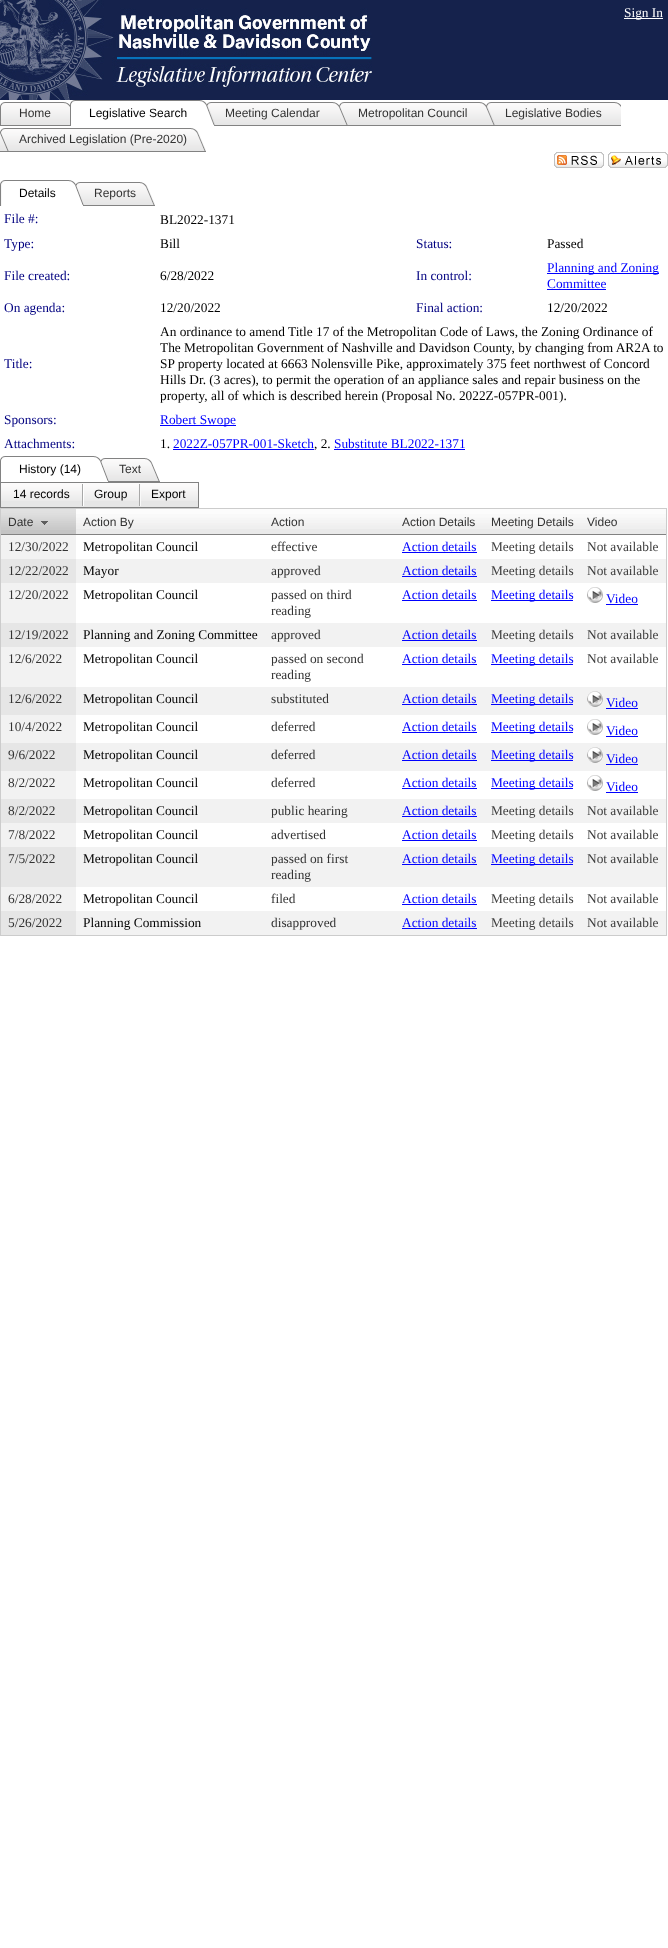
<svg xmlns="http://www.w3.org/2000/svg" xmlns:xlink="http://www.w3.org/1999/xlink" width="668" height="1948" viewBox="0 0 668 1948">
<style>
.cls-1{font:13.35px Liberation Serif;fill:#ffffff}
.cls-2{font:12px Liberation Sans;fill:#333333}
.cls-3{font:12px Liberation Sans;fill:#000000}
.cls-4{font:13.35px Liberation Serif;fill:#000080}
.cls-5{font:13.35px Liberation Serif;fill:#000000}
.cls-6{font:13.35px Liberation Serif;fill:#0000ff}
.cls-7{font:13.35px Liberation Serif;fill:#333333}
.cls-8{font:13.35px Liberation Serif;fill:#3d3d3d}
</style>
<rect width="100%" height="100%" fill="#ffffff"/>
<rect fill="#15224c" x="372" y="0" width="296" height="100"/>
<image xlink:href="image0.png" x="0" y="0" width="372" height="100"/>
<rect fill="#ffffff" x="624" y="18" width="39" height="1"/>
<image xlink:href="image1.png" x="0" y="102" width="9" height="24"/>
<image xlink:href="image2.png" x="9" y="102" width="61" height="24"/>
<image xlink:href="image3.png" x="70" y="100" width="9" height="26"/>
<image xlink:href="image4.png" x="79" y="100" width="127" height="5"/>
<image xlink:href="image5.png" x="206" y="102" width="9" height="24"/>
<image xlink:href="image6.png" x="215" y="102" width="124" height="24"/>
<image xlink:href="image7.png" x="339" y="102" width="9" height="24"/>
<image xlink:href="image8.png" x="348" y="102" width="138" height="24"/>
<image xlink:href="image9.png" x="486" y="102" width="9" height="24"/>
<image xlink:href="image10.png" x="495" y="102" width="126" height="24"/>
<image xlink:href="image7.png" x="0" y="128" width="9" height="24"/>
<image xlink:href="image11.png" x="9" y="128" width="197" height="24"/>
<image xlink:href="image12.png" x="554" y="152" width="50" height="16"/>
<image xlink:href="image13.png" x="608" y="152" width="60" height="16"/>
<image xlink:href="image14.png" x="0" y="180" width="10" height="26"/>
<image xlink:href="image15.png" x="9" y="180" width="66" height="5"/>
<image xlink:href="image16.png" x="75" y="182" width="9" height="24"/>
<image xlink:href="image17.png" x="84" y="182" width="71" height="24"/>
<rect fill="#0000ff" x="547" y="273" width="112" height="1"/>
<rect fill="#0000ff" x="547" y="289" width="59" height="1"/>
<rect fill="#0000ff" x="160" y="425" width="76" height="1"/>
<rect fill="#0000ff" x="173" y="449" width="141" height="1"/>
<rect fill="#0000ff" x="334" y="449" width="131" height="1"/>
<image xlink:href="image3.png" x="0" y="456" width="9" height="26"/>
<image xlink:href="image18.png" x="9" y="456" width="91" height="5"/>
<image xlink:href="image16.png" x="100" y="458" width="9" height="24"/>
<image xlink:href="image19.png" x="109" y="458" width="51" height="24"/>
<rect fill="#e6e6e6" x="1" y="501" width="197" height="6"/>
<image xlink:href="image20.png" x="1" y="483" width="197" height="18"/>
<rect fill="none" stroke="#828282" x="0.5" y="482.5" width="198" height="25"/>
<image xlink:href="image21.png" x="82" y="484" width="2" height="22"/>
<image xlink:href="image22.png" x="139" y="484" width="2" height="22"/>
<rect fill="none" stroke="#cccccc" x="0.5" y="508.5" width="666" height="427"/>
<rect fill="#c4c4c4" x="1" y="530" width="75" height="4"/>
<image xlink:href="image23.png" x="1" y="509" width="75" height="21"/>
<rect fill="#828282" x="1" y="534" width="665" height="1"/>
<image xlink:href="image24.png" x="41" y="521" width="7" height="4"/>
<rect fill="#eaeaea" x="76" y="529" width="590" height="5"/>
<image xlink:href="image25.png" x="76" y="509" width="188" height="20"/>
<image xlink:href="image26.png" x="264" y="509" width="131" height="20"/>
<image xlink:href="image27.png" x="395" y="509" width="89" height="20"/>
<image xlink:href="image28.png" x="484" y="509" width="96" height="20"/>
<image xlink:href="image29.png" x="580" y="509" width="86" height="20"/>
<rect fill="#f2f2f2" x="1" y="535" width="75" height="24"/>
<rect fill="#0000ff" x="402" y="552" width="75" height="1"/>
<rect fill="#f2f2f2" x="76" y="559" width="590" height="24"/>
<rect fill="#e6e6e6" x="1" y="559" width="75" height="24"/>
<rect fill="#0000ff" x="402" y="576" width="75" height="1"/>
<rect fill="#f2f2f2" x="1" y="583" width="75" height="40"/>
<rect fill="#0000ff" x="402" y="600" width="75" height="1"/>
<rect fill="#0000ff" x="491" y="600" width="82" height="1"/>
<image xlink:href="image30.png" x="587" y="587" width="16" height="16"/>
<rect fill="#0000ff" x="606" y="604" width="32" height="1"/>
<rect fill="#f2f2f2" x="76" y="623" width="590" height="24"/>
<rect fill="#e6e6e6" x="1" y="623" width="75" height="24"/>
<rect fill="#0000ff" x="402" y="640" width="75" height="1"/>
<rect fill="#f2f2f2" x="1" y="647" width="75" height="40"/>
<rect fill="#0000ff" x="402" y="664" width="75" height="1"/>
<rect fill="#0000ff" x="491" y="664" width="82" height="1"/>
<rect fill="#f2f2f2" x="76" y="687" width="590" height="28"/>
<rect fill="#e6e6e6" x="1" y="687" width="75" height="28"/>
<rect fill="#0000ff" x="402" y="704" width="75" height="1"/>
<rect fill="#0000ff" x="491" y="704" width="82" height="1"/>
<image xlink:href="image31.png" x="587" y="691" width="16" height="16"/>
<rect fill="#0000ff" x="606" y="708" width="32" height="1"/>
<rect fill="#f2f2f2" x="1" y="715" width="75" height="28"/>
<rect fill="#0000ff" x="402" y="732" width="75" height="1"/>
<rect fill="#0000ff" x="491" y="732" width="82" height="1"/>
<image xlink:href="image30.png" x="587" y="719" width="16" height="16"/>
<rect fill="#0000ff" x="606" y="736" width="32" height="1"/>
<rect fill="#f2f2f2" x="76" y="743" width="590" height="28"/>
<rect fill="#e6e6e6" x="1" y="743" width="75" height="28"/>
<rect fill="#0000ff" x="402" y="760" width="75" height="1"/>
<rect fill="#0000ff" x="491" y="760" width="82" height="1"/>
<image xlink:href="image31.png" x="587" y="747" width="16" height="16"/>
<rect fill="#0000ff" x="606" y="764" width="32" height="1"/>
<rect fill="#f2f2f2" x="1" y="771" width="75" height="28"/>
<rect fill="#0000ff" x="402" y="788" width="75" height="1"/>
<rect fill="#0000ff" x="491" y="788" width="82" height="1"/>
<image xlink:href="image30.png" x="587" y="775" width="16" height="16"/>
<rect fill="#0000ff" x="606" y="792" width="32" height="1"/>
<rect fill="#f2f2f2" x="76" y="799" width="590" height="24"/>
<rect fill="#e6e6e6" x="1" y="799" width="75" height="24"/>
<rect fill="#0000ff" x="402" y="816" width="75" height="1"/>
<rect fill="#f2f2f2" x="1" y="823" width="75" height="24"/>
<rect fill="#0000ff" x="402" y="840" width="75" height="1"/>
<rect fill="#f2f2f2" x="76" y="847" width="590" height="40"/>
<rect fill="#e6e6e6" x="1" y="847" width="75" height="40"/>
<rect fill="#0000ff" x="402" y="864" width="75" height="1"/>
<rect fill="#0000ff" x="491" y="864" width="82" height="1"/>
<rect fill="#f2f2f2" x="1" y="887" width="75" height="24"/>
<rect fill="#0000ff" x="402" y="904" width="75" height="1"/>
<rect fill="#f2f2f2" x="76" y="911" width="590" height="24"/>
<rect fill="#e6e6e6" x="1" y="911" width="75" height="24"/>
<rect fill="#0000ff" x="402" y="928" width="75" height="1"/>
<text class="cls-1" x="624" y="17">Sign In</text>
<text class="cls-2" x="19" y="117">Home</text>
<text class="cls-3" x="89" y="117">Legislative Search</text>
<text class="cls-2" x="225" y="117">Meeting Calendar</text>
<text class="cls-2" x="358" y="117">Metropolitan Council</text>
<text class="cls-2" x="505" y="117">Legislative Bodies</text>
<text class="cls-2" x="19" y="143">Archived Legislation (Pre-2020)</text>
<text class="cls-3" x="19" y="197">Details</text>
<text class="cls-2" x="94" y="197">Reports</text>
<text class="cls-4" x="4" y="223">File #:</text>
<text class="cls-5" x="160" y="224">BL2022-1371</text>
<text class="cls-4" x="4" y="248">Type:</text>
<text class="cls-5" x="160" y="248">Bill</text>
<text class="cls-4" x="416" y="248">Status:</text>
<text class="cls-5" x="547" y="248">Passed</text>
<text class="cls-4" x="4" y="280">File created:</text>
<text class="cls-5" x="160" y="280">6/28/2022</text>
<text class="cls-4" x="416" y="280">In control:</text>
<text class="cls-6"><tspan x="547" y="272">Planning and Zoning</tspan><tspan x="547" y="288">Committee</tspan></text>
<text class="cls-4" x="4" y="312">On agenda:</text>
<text class="cls-5" x="160" y="312">12/20/2022</text>
<text class="cls-4" x="416" y="312">Final action:</text>
<text class="cls-5" x="547" y="312">12/20/2022</text>
<text class="cls-4" x="4" y="368">Title:</text>
<text class="cls-5"><tspan x="160" y="336">An ordinance to amend Title 17 of the Metropolitan Code of Laws, the Zoning Ordinance of</tspan><tspan x="160" y="352">The Metropolitan Government of Nashville and Davidson County, by changing from AR2A to</tspan><tspan x="160" y="368">SP property located at 6663 Nolensville Pike, approximately 375 feet northwest of Concord</tspan><tspan x="160" y="384">Hills Dr. (3 acres), to permit the operation of an appliance sales and repair business on the</tspan><tspan x="160" y="400">property, all of which is described herein (Proposal No. 2022Z-057PR-001).</tspan></text>
<text class="cls-4" x="4" y="424">Sponsors:</text>
<text class="cls-6" x="160" y="424">Robert Swope</text>
<text class="cls-4" x="4" y="448">Attachments:</text>
<text class="cls-5" x="160" y="448">1.</text>
<text class="cls-6" x="173" y="448">2022Z-057PR-001-Sketch</text>
<text class="cls-5" x="314" y="448">, 2.</text>
<text class="cls-6" x="334" y="448">Substitute BL2022-1371</text>
<text class="cls-3" x="19" y="473">History (14)</text>
<text class="cls-2" x="119" y="473">Text</text>
<text class="cls-3" x="13" y="498">14 records</text>
<text class="cls-3" x="94" y="498">Group</text>
<text class="cls-3" x="151" y="498">Export</text>
<text class="cls-2" x="8" y="526">Date</text>
<text class="cls-2" x="83" y="526">Action By</text>
<text class="cls-2" x="271" y="526">Action</text>
<text class="cls-2" x="402" y="526">Action Details</text>
<text class="cls-2" x="491" y="526">Meeting Details</text>
<text class="cls-2" x="587" y="526">Video</text>
<text class="cls-7" x="8" y="551">12/30/2022</text>
<text class="cls-5" x="83" y="551">Metropolitan Council</text>
<text class="cls-7" x="271" y="551">effective</text>
<text class="cls-6" x="402" y="551">Action details</text>
<text class="cls-8" x="491" y="551">Meeting details</text>
<text class="cls-8" x="587" y="551">Not available</text>
<text class="cls-7" x="8" y="575">12/22/2022</text>
<text class="cls-5" x="83" y="575">Mayor</text>
<text class="cls-7" x="271" y="575">approved</text>
<text class="cls-6" x="402" y="575">Action details</text>
<text class="cls-8" x="491" y="575">Meeting details</text>
<text class="cls-8" x="587" y="575">Not available</text>
<text class="cls-7" x="8" y="599">12/20/2022</text>
<text class="cls-5" x="83" y="599">Metropolitan Council</text>
<text class="cls-7"><tspan x="271" y="599">passed on third</tspan><tspan x="271" y="615">reading</tspan></text>
<text class="cls-6" x="402" y="599">Action details</text>
<text class="cls-6" x="491" y="599">Meeting details</text>
<text class="cls-6" x="606" y="603">Video</text>
<text class="cls-7" x="8" y="639">12/19/2022</text>
<text class="cls-5" x="83" y="639">Planning and Zoning Committee</text>
<text class="cls-7" x="271" y="639">approved</text>
<text class="cls-6" x="402" y="639">Action details</text>
<text class="cls-8" x="491" y="639">Meeting details</text>
<text class="cls-8" x="587" y="639">Not available</text>
<text class="cls-7" x="8" y="663">12/6/2022</text>
<text class="cls-5" x="83" y="663">Metropolitan Council</text>
<text class="cls-7"><tspan x="271" y="663">passed on second</tspan><tspan x="271" y="679">reading</tspan></text>
<text class="cls-6" x="402" y="663">Action details</text>
<text class="cls-6" x="491" y="663">Meeting details</text>
<text class="cls-8" x="587" y="663">Not available</text>
<text class="cls-7" x="8" y="703">12/6/2022</text>
<text class="cls-5" x="83" y="703">Metropolitan Council</text>
<text class="cls-7" x="271" y="703">substituted</text>
<text class="cls-6" x="402" y="703">Action details</text>
<text class="cls-6" x="491" y="703">Meeting details</text>
<text class="cls-6" x="606" y="707">Video</text>
<text class="cls-7" x="8" y="731">10/4/2022</text>
<text class="cls-5" x="83" y="731">Metropolitan Council</text>
<text class="cls-7" x="271" y="731">deferred</text>
<text class="cls-6" x="402" y="731">Action details</text>
<text class="cls-6" x="491" y="731">Meeting details</text>
<text class="cls-6" x="606" y="735">Video</text>
<text class="cls-7" x="8" y="759">9/6/2022</text>
<text class="cls-5" x="83" y="759">Metropolitan Council</text>
<text class="cls-7" x="271" y="759">deferred</text>
<text class="cls-6" x="402" y="759">Action details</text>
<text class="cls-6" x="491" y="759">Meeting details</text>
<text class="cls-6" x="606" y="763">Video</text>
<text class="cls-7" x="8" y="787">8/2/2022</text>
<text class="cls-5" x="83" y="787">Metropolitan Council</text>
<text class="cls-7" x="271" y="787">deferred</text>
<text class="cls-6" x="402" y="787">Action details</text>
<text class="cls-6" x="491" y="787">Meeting details</text>
<text class="cls-6" x="606" y="791">Video</text>
<text class="cls-7" x="8" y="815">8/2/2022</text>
<text class="cls-5" x="83" y="815">Metropolitan Council</text>
<text class="cls-7" x="271" y="815">public hearing</text>
<text class="cls-6" x="402" y="815">Action details</text>
<text class="cls-8" x="491" y="815">Meeting details</text>
<text class="cls-8" x="587" y="815">Not available</text>
<text class="cls-7" x="8" y="839">7/8/2022</text>
<text class="cls-5" x="83" y="839">Metropolitan Council</text>
<text class="cls-7" x="271" y="839">advertised</text>
<text class="cls-6" x="402" y="839">Action details</text>
<text class="cls-8" x="491" y="839">Meeting details</text>
<text class="cls-8" x="587" y="839">Not available</text>
<text class="cls-7" x="8" y="863">7/5/2022</text>
<text class="cls-5" x="83" y="863">Metropolitan Council</text>
<text class="cls-7"><tspan x="271" y="863">passed on first</tspan><tspan x="271" y="879">reading</tspan></text>
<text class="cls-6" x="402" y="863">Action details</text>
<text class="cls-6" x="491" y="863">Meeting details</text>
<text class="cls-8" x="587" y="863">Not available</text>
<text class="cls-7" x="8" y="903">6/28/2022</text>
<text class="cls-5" x="83" y="903">Metropolitan Council</text>
<text class="cls-7" x="271" y="903">filed</text>
<text class="cls-6" x="402" y="903">Action details</text>
<text class="cls-8" x="491" y="903">Meeting details</text>
<text class="cls-8" x="587" y="903">Not available</text>
<text class="cls-7" x="8" y="927">5/26/2022</text>
<text class="cls-5" x="83" y="927">Planning Commission</text>
<text class="cls-7" x="271" y="927">disapproved</text>
<text class="cls-6" x="402" y="927">Action details</text>
<text class="cls-8" x="491" y="927">Meeting details</text>
<text class="cls-8" x="587" y="927">Not available</text>
</svg>
